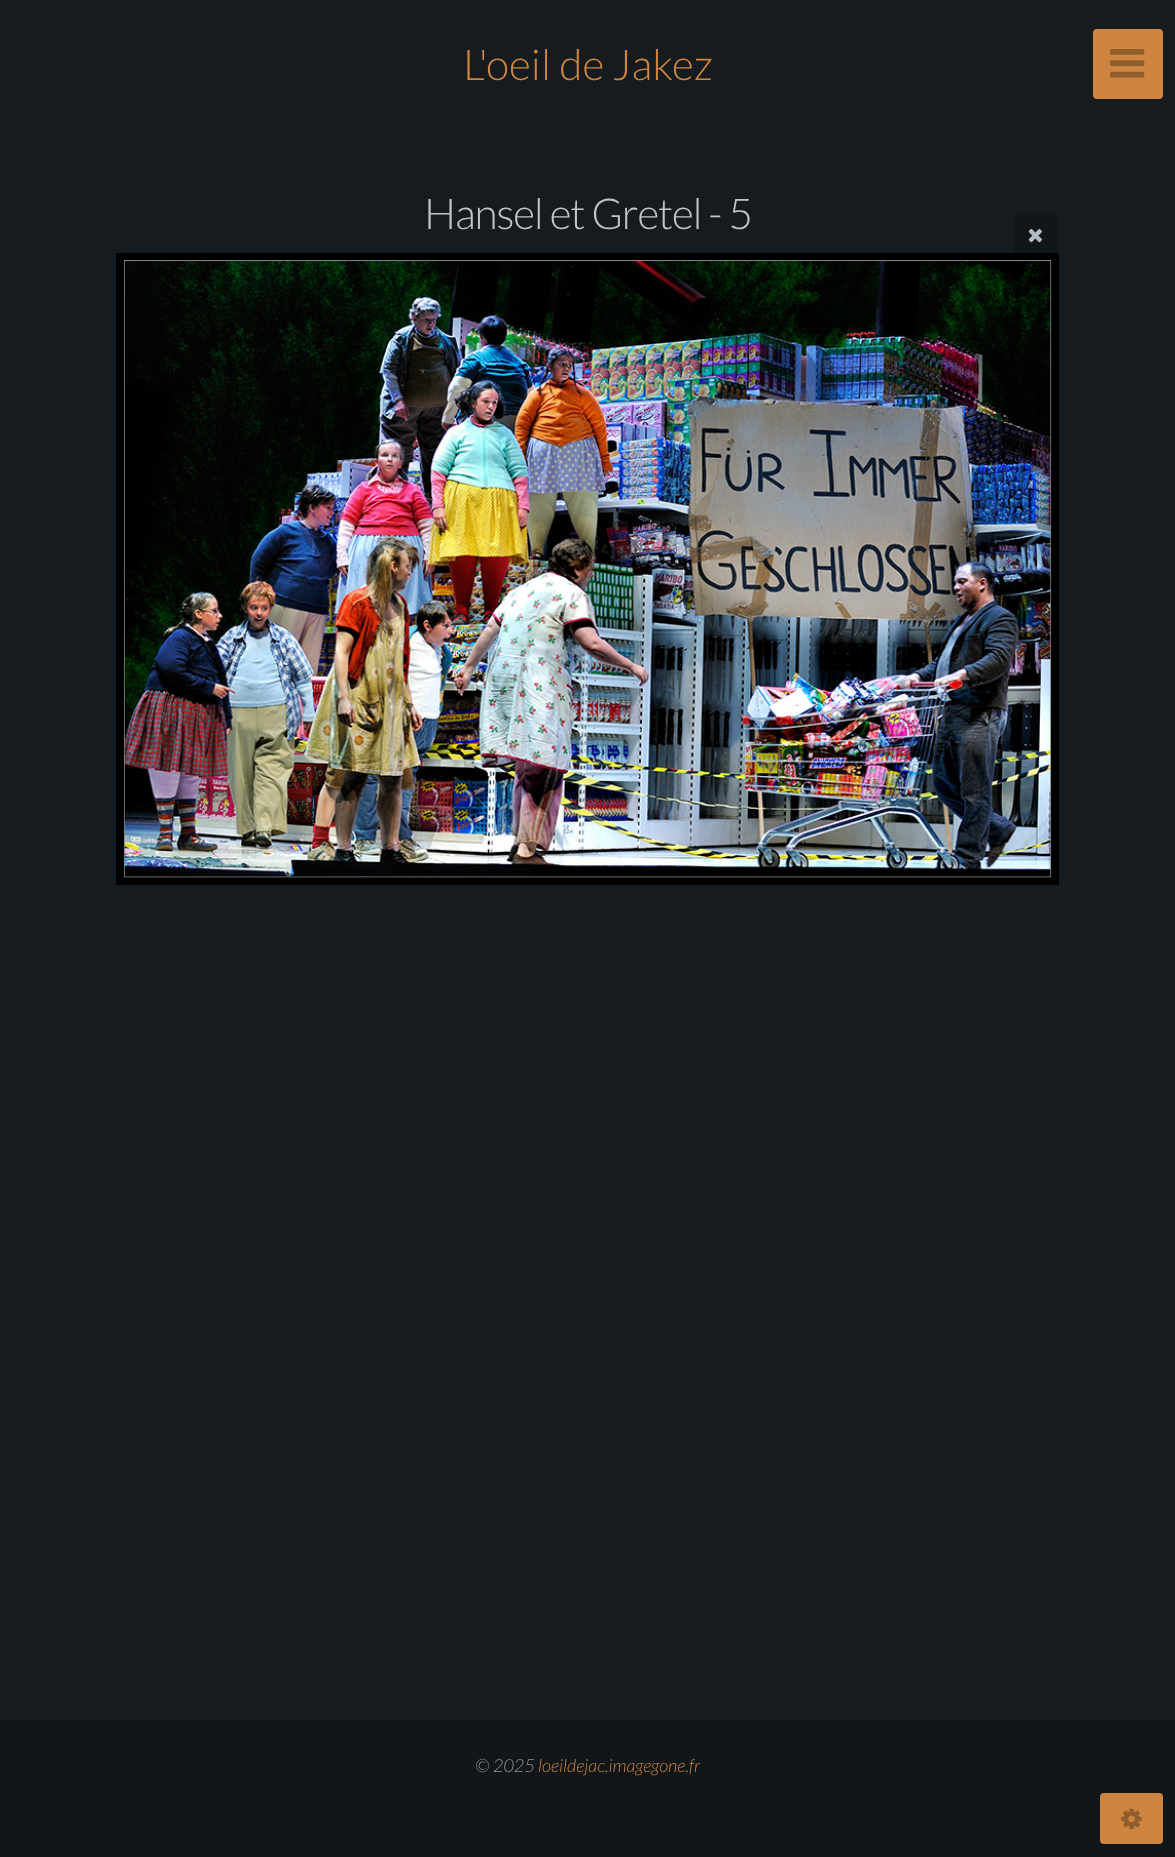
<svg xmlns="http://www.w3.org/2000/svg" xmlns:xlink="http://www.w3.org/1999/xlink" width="1175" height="1857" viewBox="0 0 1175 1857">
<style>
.cls-1{font:300 42.5px Lato;fill:#cd853f}
.cls-2{font:300 42.5px Lato;letter-spacing:-1.2px;fill:#bfc6cb}
.cls-3{font:italic 300 18px Lato;fill:#8b97a0}
.cls-4{font:italic 300 18px Lato;fill:#cd853f}
</style>
<rect width="100%" height="100%" fill="#111618"/>
<rect fill="#151b1e" x="0" y="0" width="1175" height="1720"/>
<path fill="#111618" d="M1018 215H1054C1056 215 1058 217 1058 219V253H1014V219C1014 217 1016 215 1018 215Z"/>
<image xlink:href="image0.png" x="1028" y="229" width="14" height="14"/>
<rect fill="#000000" x="116" y="253" width="943" height="632"/>
<rect fill="#0b0e0f" x="124" y="877" width="927" height="1"/>
<image xlink:href="image1.png" x="123" y="260" width="929" height="618"/>
<rect fill="#cd853f" x="1093" y="29" width="70" height="70" rx="4"/>
<image xlink:href="image2.png" x="1110" y="49" width="35" height="29"/>
<rect fill="#cd853f" x="1100" y="1793" width="63" height="51" rx="4"/>
<image xlink:href="image3.png" x="1121" y="1808" width="21" height="22"/>
<text class="cls-1" x="463" y="80">L'oeil de Jakez</text>
<text class="cls-2" x="424" y="229">Hansel et Gretel - 5</text>
<text class="cls-3" x="475" y="1772">© 2025</text>
<text class="cls-4" x="538" y="1772">loeildejac.imagegone.fr</text>
</svg>
